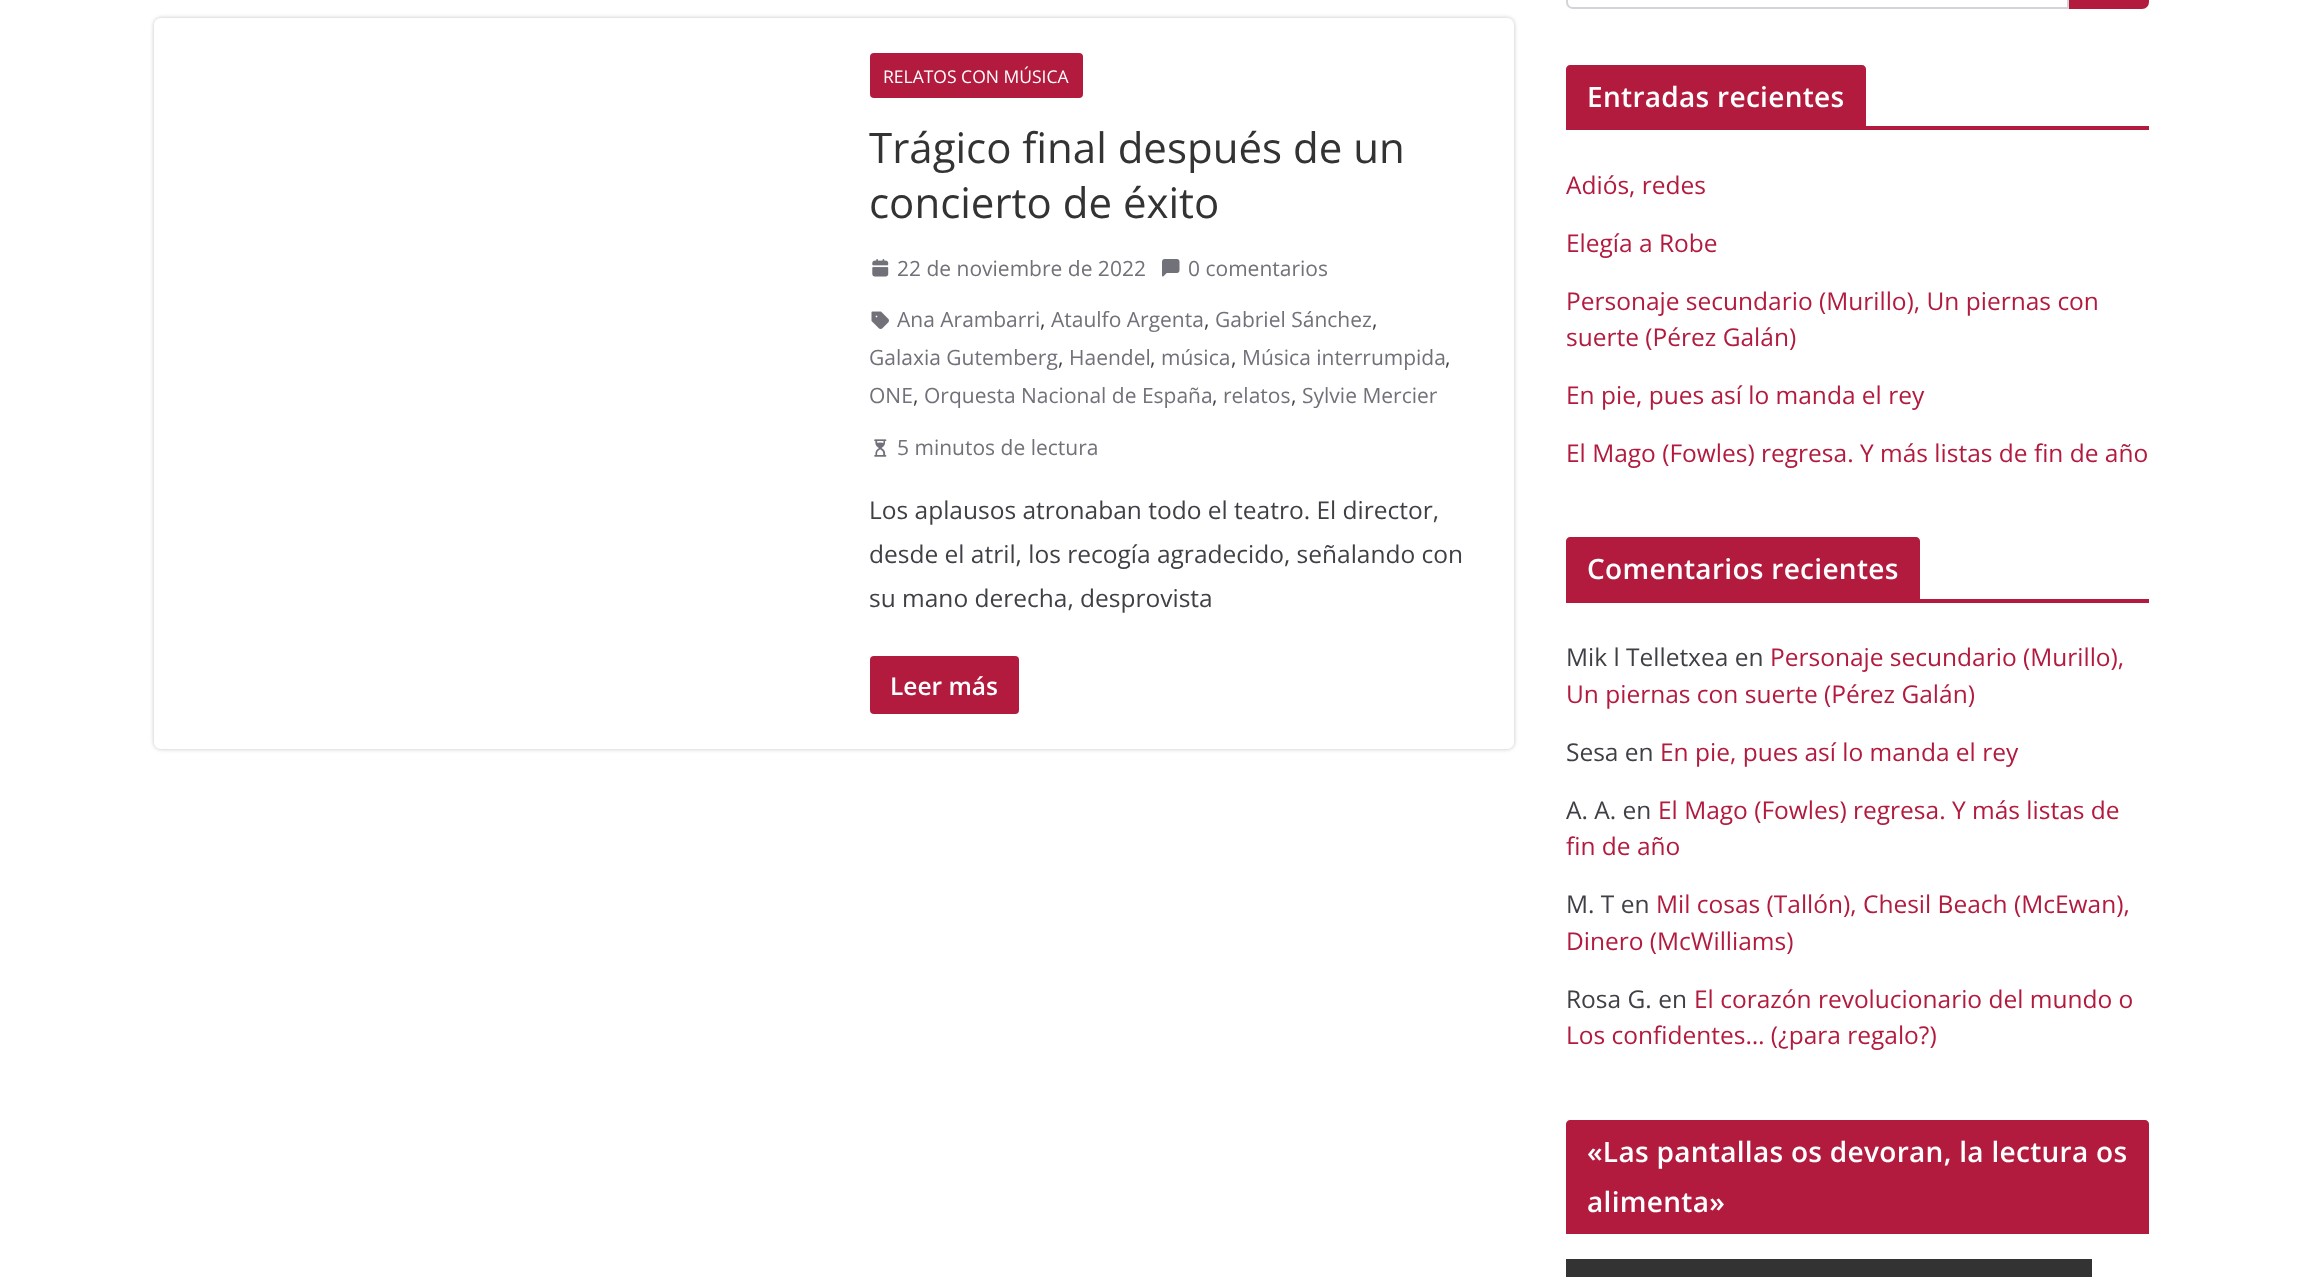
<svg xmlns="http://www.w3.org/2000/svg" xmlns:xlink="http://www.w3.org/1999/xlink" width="2302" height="1277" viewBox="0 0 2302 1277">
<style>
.cls-1{font:17.5px Open Sans;fill:#ffffff}
.cls-2{font:42px Open Sans;fill:#333333}
.cls-3{font:21px Open Sans;fill:#71717a}
.cls-4{font:21px Open Sans;fill:#3f3f46}
.cls-5{font:24.5px Open Sans;fill:#3f3f46}
.cls-6{font:600 24.5px Open Sans;fill:#ffffff}
.cls-7{font:600 28px Open Sans;letter-spacing:0.3px;fill:#ffffff}
.cls-8{font:24.5px Open Sans;fill:#b21a3e}
</style>
<defs>
<clipPath id="clip1"><path d="M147 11H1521V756H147ZM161 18H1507C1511 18 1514 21 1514 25V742C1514 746 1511 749 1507 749H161C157 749 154 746 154 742V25C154 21 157 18 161 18Z" clip-rule="evenodd"/></clipPath>
</defs>
<rect width="100%" height="100%" fill="#ffffff"/>
<g clip-path="url(#clip1)">
<rect fill="#000000" fill-opacity="0.24" filter="blur(2px)" x="154" y="18" width="1360" height="731" rx="7"/>
</g>
<rect fill="#b21a3e" x="870" y="53" width="213" height="45" rx="4"/>
<image xlink:href="image0.png" x="872" y="259" width="17" height="18"/>
<image xlink:href="image1.png" x="1162" y="259" width="18" height="18"/>
<image xlink:href="image2.png" x="871" y="311" width="18" height="18"/>
<image xlink:href="image3.png" x="874" y="439" width="13" height="18"/>
<rect fill="#b21a3e" x="870" y="656" width="149" height="58" rx="4"/>
<path fill="none" stroke="#d4d4d8" stroke-width="2" d="M1573-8H2068V8H1573C1569.5 8 1567 5.5 1567 2V-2C1567-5.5 1569.5-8 1573-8Z"/>
<path fill="#b21a3e" stroke="#b21a3e" stroke-width="2" d="M2070-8H2142C2145.5-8 2148-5.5 2148-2V2C2148 5.5 2145.5 8 2142 8H2070Z"/>
<rect fill="#b21a3e" x="1566" y="126" width="583" height="4"/>
<path fill="#b21a3e" d="M1570 65H1862C1864 65 1866 67 1866 69V126H1566V69C1566 67 1568 65 1570 65Z"/>
<rect fill="#b21a3e" x="1566" y="599" width="583" height="4"/>
<path fill="#b21a3e" d="M1570 537H1916C1918 537 1920 539 1920 541V599H1566V541C1566 539 1568 537 1570 537Z"/>
<rect fill="#b21a3e" x="1566" y="1230" width="583" height="4"/>
<path fill="#b21a3e" d="M1570 1120H2145C2147 1120 2149 1122 2149 1124V1230H1566V1124C1566 1122 1568 1120 1570 1120Z"/>
<rect fill="#333333" x="1566" y="1259" width="526" height="18"/>
<text class="cls-1" x="883" y="83">RELATOS CON MÚSICA</text>
<text class="cls-2"><tspan x="869" y="163">Trágico final después de un</tspan><tspan x="869" y="218">concierto de éxito</tspan></text>
<text class="cls-3" x="897" y="276">22 de noviembre de 2022</text>
<text class="cls-3" x="1188" y="276">0 comentarios</text>
<text class="cls-3" x="897" y="327">Ana Arambarri</text>
<text class="cls-4" x="1040" y="327">,</text>
<text class="cls-3" x="1051" y="327">Ataulfo Argenta</text>
<text class="cls-4" x="1204" y="327">,</text>
<text class="cls-3" x="1215" y="327">Gabriel Sánchez</text>
<text class="cls-4" x="1372" y="327">,</text>
<text class="cls-3" x="869" y="365">Galaxia Gutemberg</text>
<text class="cls-4" x="1058" y="365">,</text>
<text class="cls-3" x="1069" y="365">Haendel</text>
<text class="cls-4" x="1150" y="365">,</text>
<text class="cls-3" x="1161" y="365">música</text>
<text class="cls-4" x="1231" y="365">,</text>
<text class="cls-3" x="1242" y="365">Música interrumpida</text>
<text class="cls-4" x="1445" y="365">,</text>
<text class="cls-3" x="869" y="403">ONE</text>
<text class="cls-4" x="913" y="403">,</text>
<text class="cls-3" x="924" y="403">Orquesta Nacional de España</text>
<text class="cls-4" x="1212" y="403">,</text>
<text class="cls-3" x="1223" y="403">relatos</text>
<text class="cls-4" x="1291" y="403">,</text>
<text class="cls-3" x="1302" y="403">Sylvie Mercier</text>
<text class="cls-3" x="897" y="455">5 minutos de lectura</text>
<text class="cls-5"><tspan x="869" y="519">Los aplausos atronaban todo el teatro. El director,</tspan><tspan x="869" y="563">desde el atril, los recogía agradecido, señalando con</tspan><tspan x="869" y="607">su mano derecha, desprovista</tspan></text>
<text class="cls-6" x="890" y="695">Leer más</text>
<text class="cls-7" x="1587" y="107">Entradas recientes</text>
<text class="cls-8" x="1566" y="194">Adiós, redes</text>
<text class="cls-8" x="1566" y="252">Elegía a Robe</text>
<text class="cls-8"><tspan x="1566" y="310">Personaje secundario (Murillo), Un piernas con</tspan><tspan x="1566" y="346">suerte (Pérez Galán)</tspan></text>
<text class="cls-8" x="1566" y="404">En pie, pues así lo manda el rey</text>
<text class="cls-8" x="1566" y="462">El Mago (Fowles) regresa. Y más listas de fin de año</text>
<text class="cls-7" x="1587" y="579">Comentarios recientes</text>
<text class="cls-5" x="1566" y="666">Mik l Telletxea en</text>
<text class="cls-8" x="1770" y="666">Personaje secundario (Murillo),</text>
<text class="cls-8" x="1566" y="703">Un piernas con suerte (Pérez Galán)</text>
<text class="cls-5" x="1566" y="761">Sesa en</text>
<text class="cls-8" x="1660" y="761">En pie, pues así lo manda el rey</text>
<text class="cls-5" x="1566" y="819">A. A. en</text>
<text class="cls-8" x="1658" y="819">El Mago (Fowles) regresa. Y más listas de</text>
<text class="cls-8" x="1566" y="855">fin de año</text>
<text class="cls-5" x="1566" y="913">M. T en</text>
<text class="cls-8" x="1656" y="913">Mil cosas (Tallón), Chesil Beach (McEwan),</text>
<text class="cls-8" x="1566" y="950">Dinero (McWilliams)</text>
<text class="cls-5" x="1566" y="1008">Rosa G. en</text>
<text class="cls-8" x="1694" y="1008">El corazón revolucionario del mundo o</text>
<text class="cls-8" x="1566" y="1044">Los confidentes… (¿para regalo?)</text>
<text class="cls-7"><tspan x="1587" y="1162">«Las pantallas os devoran, la lectura os</tspan><tspan x="1587" y="1212">alimenta»</tspan></text>
</svg>
